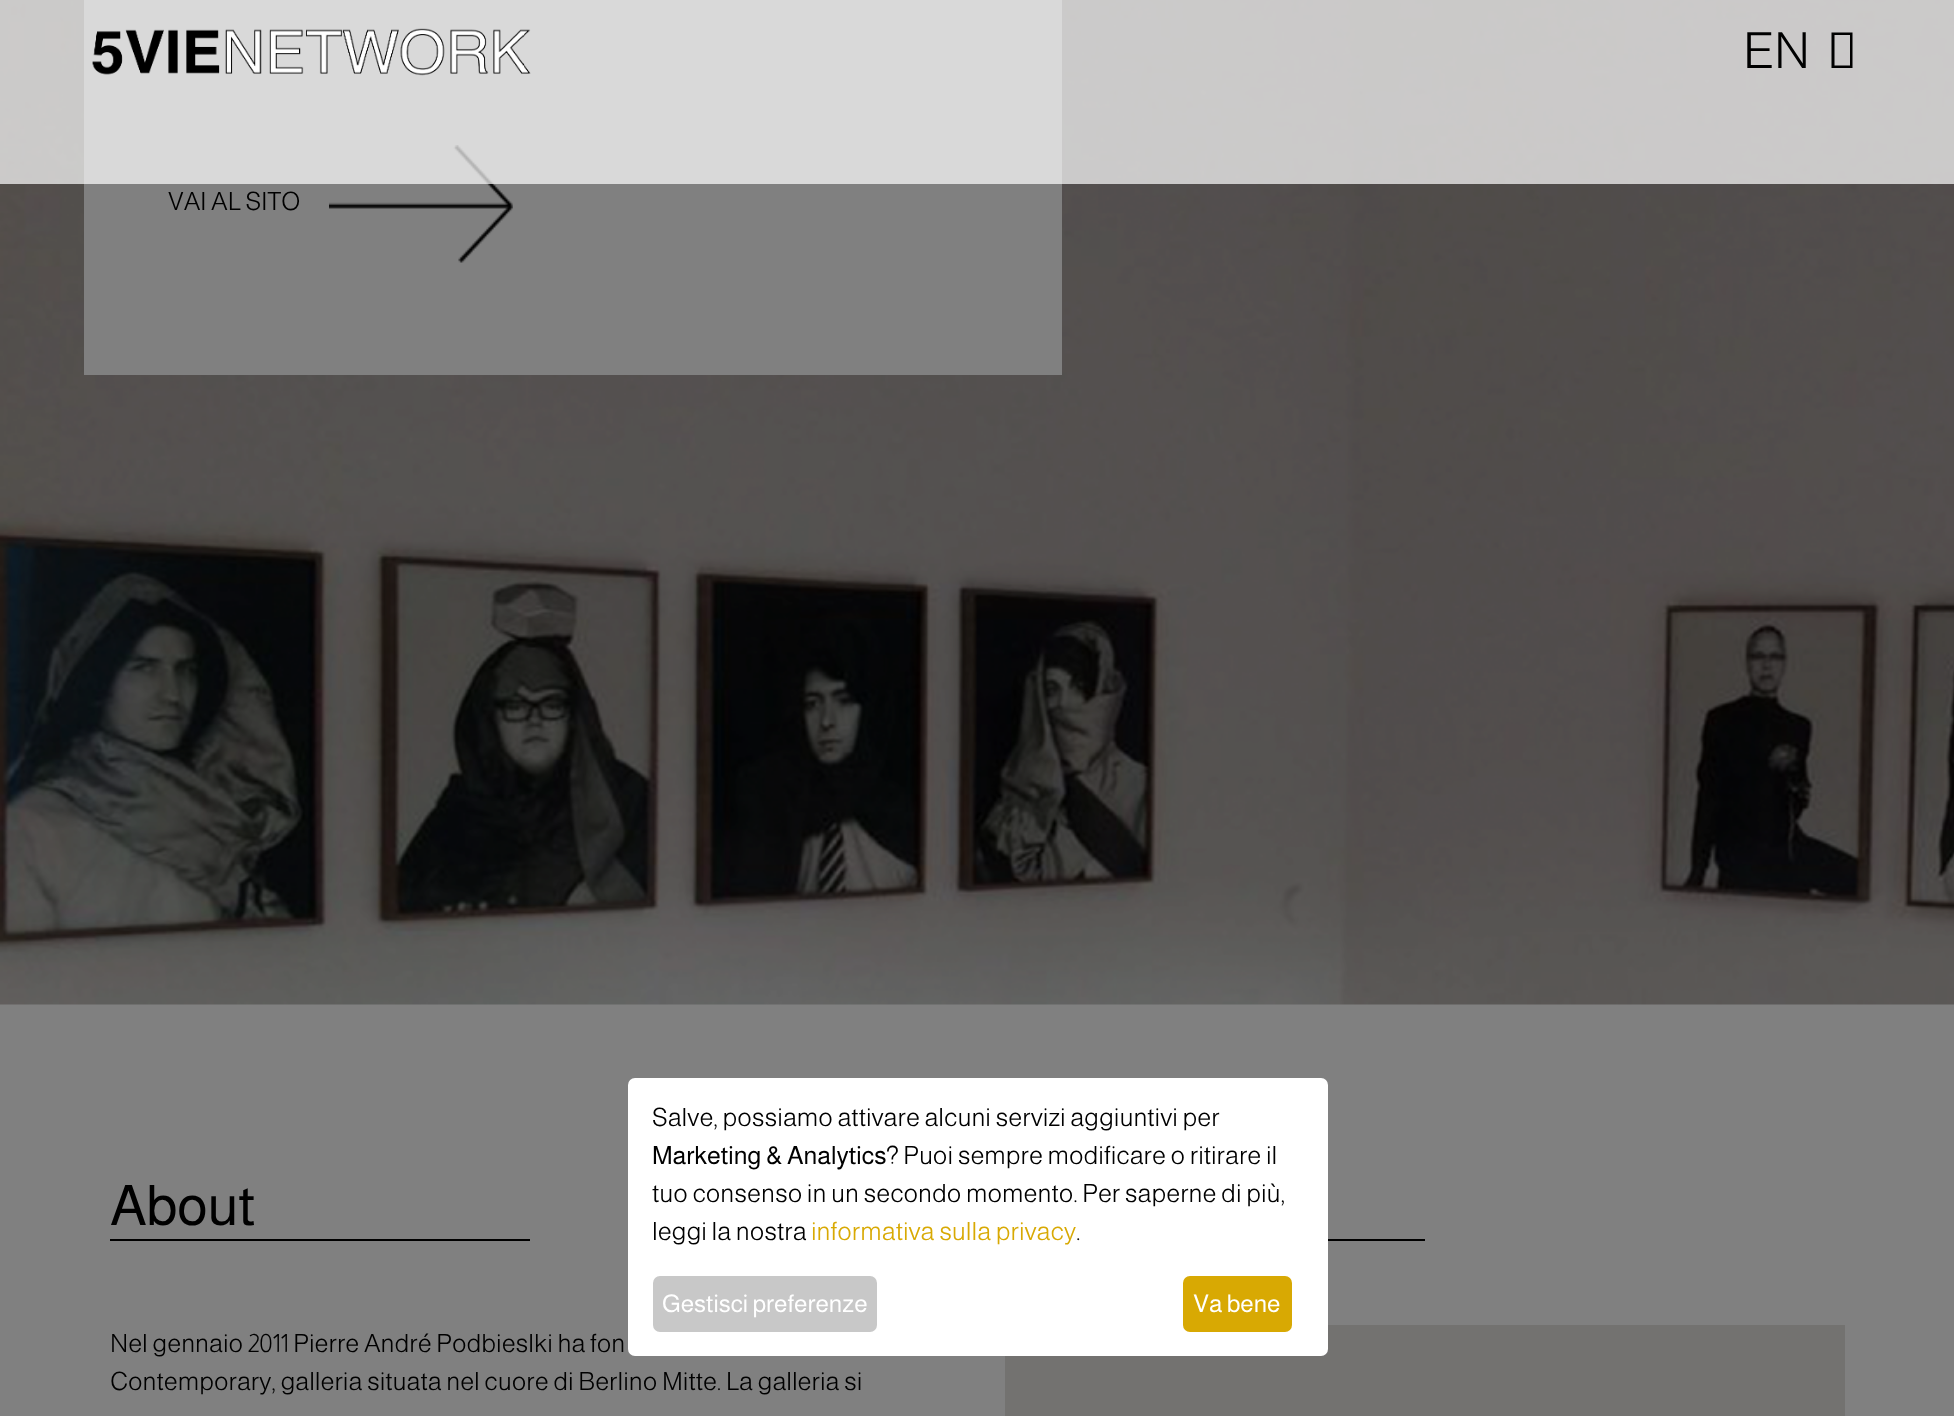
<svg xmlns="http://www.w3.org/2000/svg" xmlns:xlink="http://www.w3.org/1999/xlink" width="1954" height="1416" viewBox="0 0 1954 1416">
<style>
.cls-1{font:300 50px Almarai;fill:#000000}
.cls-2{font:300 25.2px Almarai;fill:#000000}
.cls-3{font:56px Almarai;fill:#000000}
.cls-4{font:25.2px Almarai;fill:#000000}
.cls-5{font:300 25.2px Almarai;fill:#d8a903}
.cls-6{font:24.5px Almarai;fill:#ffffff}
</style>
<rect width="100%" height="100%" fill="#808080"/>
<image xlink:href="image1.png" x="0" y="0" width="1954" height="1005"/>
<rect fill="#808080" x="84" y="0" width="978" height="375"/>
<image xlink:href="image2.png" x="329" y="145" width="184" height="118"/>
<rect fill="#ffffff" fill-opacity="0.7" x="0" y="0" width="1954" height="184"/>
<image xlink:href="image0.png" x="92" y="28" width="439" height="48"/>
<path fill="#000000" d="M1831.5 68V32.5H1852.5V68ZM1834.5 65.5H1850V35H1834.5Z"/>
<rect fill="#000000" x="110" y="1239" width="420" height="2"/>
<rect fill="#000000" x="1328" y="1239" width="97" height="2"/>
<rect fill="#737270" x="1005" y="1325" width="840" height="91"/>
<rect fill="#ffffff" x="628" y="1078" width="700" height="278" rx="7"/>
<rect fill="#c8c8c8" x="653" y="1276" width="224" height="56" rx="7"/>
<rect fill="#d8a903" x="1183" y="1276" width="109" height="56" rx="7"/>
<text class="cls-1" x="1743" y="68">EN</text>
<text class="cls-2" x="168" y="210">VAI AL SITO</text>
<text class="cls-3" x="110" y="1225">About</text>
<text class="cls-2"><tspan x="110" y="1352">Nel gennaio 2011 Pierre André Podbieslki ha fon</tspan><tspan x="110" y="1390">Contemporary, galleria situata nel cuore di Berlino Mitte. La galleria si</tspan></text>
<text class="cls-2" x="652" y="1126">Salve, possiamo attivare alcuni servizi aggiuntivi per</text>
<text class="cls-4" x="652" y="1164">Marketing &amp; Analytics</text>
<text class="cls-2" x="886" y="1164">? Puoi sempre modificare o ritirare il</text>
<text class="cls-2"><tspan x="652" y="1202">tuo consenso in un secondo momento. Per saperne di più,</tspan><tspan x="652" y="1240">leggi la nostra</tspan></text>
<text class="cls-5" x="811" y="1240">informativa sulla privacy</text>
<text class="cls-2" x="1076" y="1240">.</text>
<text class="cls-6" x="662" y="1312">Gestisci preferenze</text>
<text class="cls-6" x="1193" y="1312">Va bene</text>
</svg>
